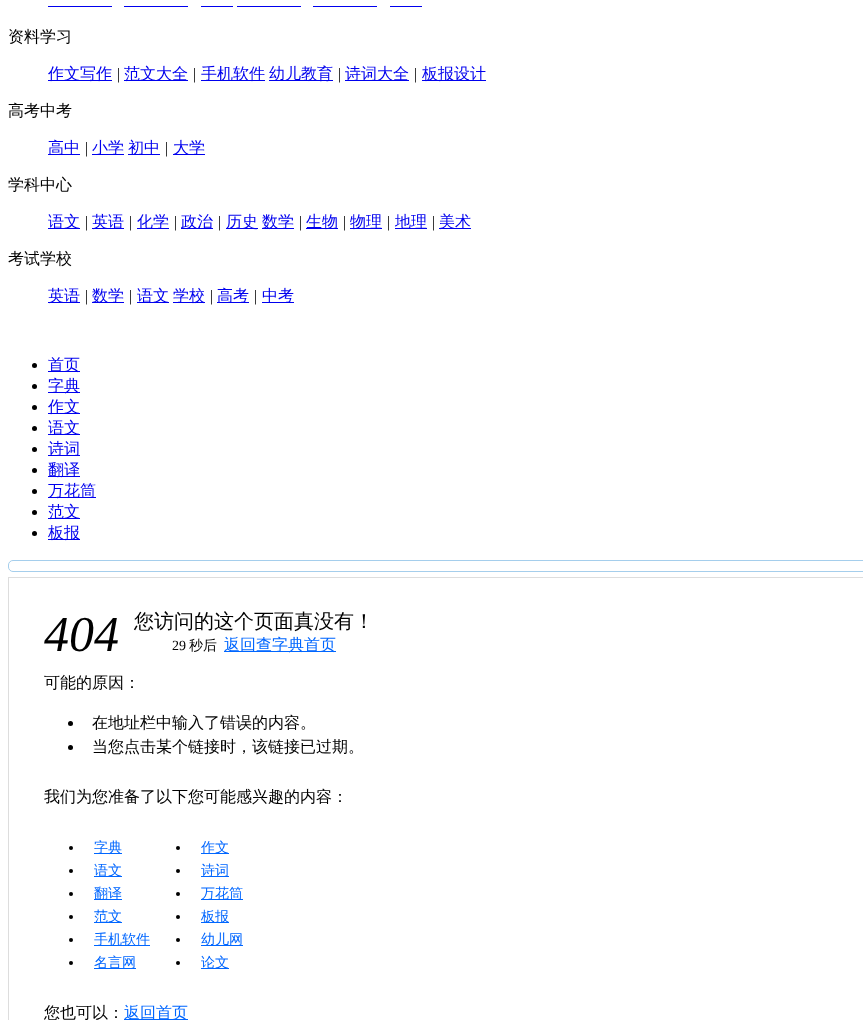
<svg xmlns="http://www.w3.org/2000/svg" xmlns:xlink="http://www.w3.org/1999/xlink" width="863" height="1020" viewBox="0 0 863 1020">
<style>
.cls-1{font:500 16px WenQuanYi Zen Hei;fill:#000000}
.cls-2{font:500 16px WenQuanYi Zen Hei;fill:#0000ee}
.cls-3{font:italic 16px Liberation Serif;fill:#000000}
.cls-4{font:italic 50px Liberation Serif;fill:#000000}
.cls-5{font:500 20px WenQuanYi Zen Hei;fill:#000000}
.cls-6{font:14px Liberation Serif;fill:#000000}
.cls-7{font:500 14px WenQuanYi Zen Hei;fill:#000000}
.cls-8{font:500 16px WenQuanYi Zen Hei;fill:#0066ff}
.cls-9{font:500 14px WenQuanYi Zen Hei;fill:#0066ff}
</style>
<rect width="100%" height="100%" fill="#ffffff"/>
<rect fill="#0000ee" x="48" y="6" width="64" height="1"/>
<rect fill="#0000ee" x="124" y="6" width="64" height="1"/>
<rect fill="#0000ee" x="201" y="6" width="32" height="1"/>
<rect fill="#0000ee" x="237" y="6" width="64" height="1"/>
<rect fill="#0000ee" x="313" y="6" width="64" height="1"/>
<rect fill="#0000ee" x="390" y="6" width="32" height="1"/>
<rect fill="#0000ee" x="48" y="80" width="64" height="1"/>
<rect fill="#0000ee" x="124" y="80" width="64" height="1"/>
<rect fill="#0000ee" x="201" y="80" width="64" height="1"/>
<rect fill="#0000ee" x="269" y="80" width="64" height="1"/>
<rect fill="#0000ee" x="345" y="80" width="64" height="1"/>
<rect fill="#0000ee" x="422" y="80" width="64" height="1"/>
<rect fill="#0000ee" x="48" y="154" width="32" height="1"/>
<rect fill="#0000ee" x="92" y="154" width="32" height="1"/>
<rect fill="#0000ee" x="128" y="154" width="32" height="1"/>
<rect fill="#0000ee" x="173" y="154" width="32" height="1"/>
<rect fill="#0000ee" x="48" y="228" width="32" height="1"/>
<rect fill="#0000ee" x="92" y="228" width="32" height="1"/>
<rect fill="#0000ee" x="137" y="228" width="32" height="1"/>
<rect fill="#0000ee" x="181" y="228" width="32" height="1"/>
<rect fill="#0000ee" x="226" y="228" width="32" height="1"/>
<rect fill="#0000ee" x="262" y="228" width="32" height="1"/>
<rect fill="#0000ee" x="306" y="228" width="32" height="1"/>
<rect fill="#0000ee" x="350" y="228" width="32" height="1"/>
<rect fill="#0000ee" x="395" y="228" width="32" height="1"/>
<rect fill="#0000ee" x="439" y="228" width="32" height="1"/>
<rect fill="#0000ee" x="48" y="302" width="32" height="1"/>
<rect fill="#0000ee" x="92" y="302" width="32" height="1"/>
<rect fill="#0000ee" x="137" y="302" width="32" height="1"/>
<rect fill="#0000ee" x="173" y="302" width="32" height="1"/>
<rect fill="#0000ee" x="217" y="302" width="32" height="1"/>
<rect fill="#0000ee" x="262" y="302" width="32" height="1"/>
<circle fill="#000000" cx="34.5" cy="365.5" r="2.5"/>
<rect fill="#0000ee" x="48" y="371" width="32" height="1"/>
<circle fill="#000000" cx="34.5" cy="386.5" r="2.5"/>
<rect fill="#0000ee" x="48" y="392" width="32" height="1"/>
<circle fill="#000000" cx="34.5" cy="407.5" r="2.5"/>
<rect fill="#0000ee" x="48" y="413" width="32" height="1"/>
<circle fill="#000000" cx="34.5" cy="428.5" r="2.5"/>
<rect fill="#0000ee" x="48" y="434" width="32" height="1"/>
<circle fill="#000000" cx="34.5" cy="449.5" r="2.5"/>
<rect fill="#0000ee" x="48" y="455" width="32" height="1"/>
<circle fill="#000000" cx="34.5" cy="470.5" r="2.5"/>
<rect fill="#0000ee" x="48" y="476" width="32" height="1"/>
<circle fill="#000000" cx="34.5" cy="491.5" r="2.5"/>
<rect fill="#0000ee" x="48" y="497" width="48" height="1"/>
<circle fill="#000000" cx="34.5" cy="512.5" r="2.5"/>
<rect fill="#0000ee" x="48" y="518" width="32" height="1"/>
<circle fill="#000000" cx="34.5" cy="533.5" r="2.5"/>
<rect fill="#0000ee" x="48" y="539" width="32" height="1"/>
<rect fill="none" stroke="#a5ceec" x="8.5" y="560.5" width="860" height="11" rx="4.5"/>
<rect fill="none" stroke="#dddddd" x="8.5" y="577.5" width="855" height="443"/>
<rect fill="#0066ff" x="224" y="651" width="112" height="1"/>
<circle fill="#000000" cx="70.5" cy="723.5" r="2.5"/>
<circle fill="#000000" cx="70.5" cy="747.5" r="2.5"/>
<circle fill="#000000" cx="71" cy="848" r="2"/>
<rect fill="#0066ff" x="94" y="853" width="28" height="1"/>
<circle fill="#000000" cx="178" cy="848" r="2"/>
<rect fill="#0066ff" x="201" y="853" width="28" height="1"/>
<circle fill="#000000" cx="71" cy="871" r="2"/>
<rect fill="#0066ff" x="94" y="876" width="28" height="1"/>
<circle fill="#000000" cx="178" cy="871" r="2"/>
<rect fill="#0066ff" x="201" y="876" width="28" height="1"/>
<circle fill="#000000" cx="71" cy="894" r="2"/>
<rect fill="#0066ff" x="94" y="899" width="28" height="1"/>
<circle fill="#000000" cx="178" cy="894" r="2"/>
<rect fill="#0066ff" x="201" y="899" width="42" height="1"/>
<circle fill="#000000" cx="71" cy="917" r="2"/>
<rect fill="#0066ff" x="94" y="922" width="28" height="1"/>
<circle fill="#000000" cx="178" cy="917" r="2"/>
<rect fill="#0066ff" x="201" y="922" width="28" height="1"/>
<circle fill="#000000" cx="71" cy="940" r="2"/>
<rect fill="#0066ff" x="94" y="945" width="56" height="1"/>
<circle fill="#000000" cx="178" cy="940" r="2"/>
<rect fill="#0066ff" x="201" y="945" width="42" height="1"/>
<circle fill="#000000" cx="71" cy="963" r="2"/>
<rect fill="#0066ff" x="94" y="968" width="42" height="1"/>
<circle fill="#000000" cx="178" cy="963" r="2"/>
<rect fill="#0066ff" x="201" y="968" width="28" height="1"/>
<rect fill="#0066ff" x="124" y="1019" width="64" height="1"/>
<text class="cls-1" x="8" y="42">资料学习</text>
<text class="cls-2" x="48" y="79">作文写作</text>
<text class="cls-3" x="116" y="79">|</text>
<text class="cls-2" x="124" y="79">范文大全</text>
<text class="cls-3" x="192" y="79">|</text>
<text class="cls-2" x="201" y="79">手机软件</text>
<text class="cls-2" x="269" y="79">幼儿教育</text>
<text class="cls-3" x="337" y="79">|</text>
<text class="cls-2" x="345" y="79">诗词大全</text>
<text class="cls-3" x="413" y="79">|</text>
<text class="cls-2" x="422" y="79">板报设计</text>
<text class="cls-1" x="8" y="116">高考中考</text>
<text class="cls-2" x="48" y="153">高中</text>
<text class="cls-3" x="84" y="153">|</text>
<text class="cls-2" x="92" y="153">小学</text>
<text class="cls-2" x="128" y="153">初中</text>
<text class="cls-3" x="164" y="153">|</text>
<text class="cls-2" x="173" y="153">大学</text>
<text class="cls-1" x="8" y="190">学科中心</text>
<text class="cls-2" x="48" y="227">语文</text>
<text class="cls-3" x="84" y="227">|</text>
<text class="cls-2" x="92" y="227">英语</text>
<text class="cls-3" x="128" y="227">|</text>
<text class="cls-2" x="137" y="227">化学</text>
<text class="cls-3" x="173" y="227">|</text>
<text class="cls-2" x="181" y="227">政治</text>
<text class="cls-3" x="217" y="227">|</text>
<text class="cls-2" x="226" y="227">历史</text>
<text class="cls-2" x="262" y="227">数学</text>
<text class="cls-3" x="298" y="227">|</text>
<text class="cls-2" x="306" y="227">生物</text>
<text class="cls-3" x="342" y="227">|</text>
<text class="cls-2" x="350" y="227">物理</text>
<text class="cls-3" x="386" y="227">|</text>
<text class="cls-2" x="395" y="227">地理</text>
<text class="cls-3" x="431" y="227">|</text>
<text class="cls-2" x="439" y="227">美术</text>
<text class="cls-1" x="8" y="264">考试学校</text>
<text class="cls-2" x="48" y="301">英语</text>
<text class="cls-3" x="84" y="301">|</text>
<text class="cls-2" x="92" y="301">数学</text>
<text class="cls-3" x="128" y="301">|</text>
<text class="cls-2" x="137" y="301">语文</text>
<text class="cls-2" x="173" y="301">学校</text>
<text class="cls-3" x="209" y="301">|</text>
<text class="cls-2" x="217" y="301">高考</text>
<text class="cls-3" x="253" y="301">|</text>
<text class="cls-2" x="262" y="301">中考</text>
<text class="cls-2"><tspan x="48" y="370">首页</tspan><tspan x="48" y="391">字典</tspan><tspan x="48" y="412">作文</tspan><tspan x="48" y="433">语文</tspan><tspan x="48" y="454">诗词</tspan><tspan x="48" y="475">翻译</tspan><tspan x="48" y="496">万花筒</tspan><tspan x="48" y="517">范文</tspan><tspan x="48" y="538">板报</tspan></text>
<text class="cls-4" x="44" y="651">404</text>
<text class="cls-5" x="134" y="628">您访问的这个页面真没有！</text>
<text class="cls-6" x="172" y="650">29</text>
<text class="cls-7" x="189" y="650">秒后</text>
<text class="cls-8" x="224" y="650">返回查字典首页</text>
<text class="cls-1" x="44" y="688">可能的原因：</text>
<text class="cls-1"><tspan x="92" y="728">在地址栏中输入了错误的内容。</tspan><tspan x="92" y="752">当您点击某个链接时，该链接已过期。</tspan></text>
<text class="cls-1" x="44" y="802">我们为您准备了以下您可能感兴趣的内容：</text>
<text class="cls-9" x="94" y="852">字典</text>
<text class="cls-9" x="201" y="852">作文</text>
<text class="cls-9" x="94" y="875">语文</text>
<text class="cls-9" x="201" y="875">诗词</text>
<text class="cls-9" x="94" y="898">翻译</text>
<text class="cls-9" x="201" y="898">万花筒</text>
<text class="cls-9" x="94" y="921">范文</text>
<text class="cls-9" x="201" y="921">板报</text>
<text class="cls-9" x="94" y="944">手机软件</text>
<text class="cls-9" x="201" y="944">幼儿网</text>
<text class="cls-9" x="94" y="967">名言网</text>
<text class="cls-9" x="201" y="967">论文</text>
<text class="cls-1" x="44" y="1018">您也可以：</text>
<text class="cls-8" x="124" y="1018">返回首页</text>
</svg>
